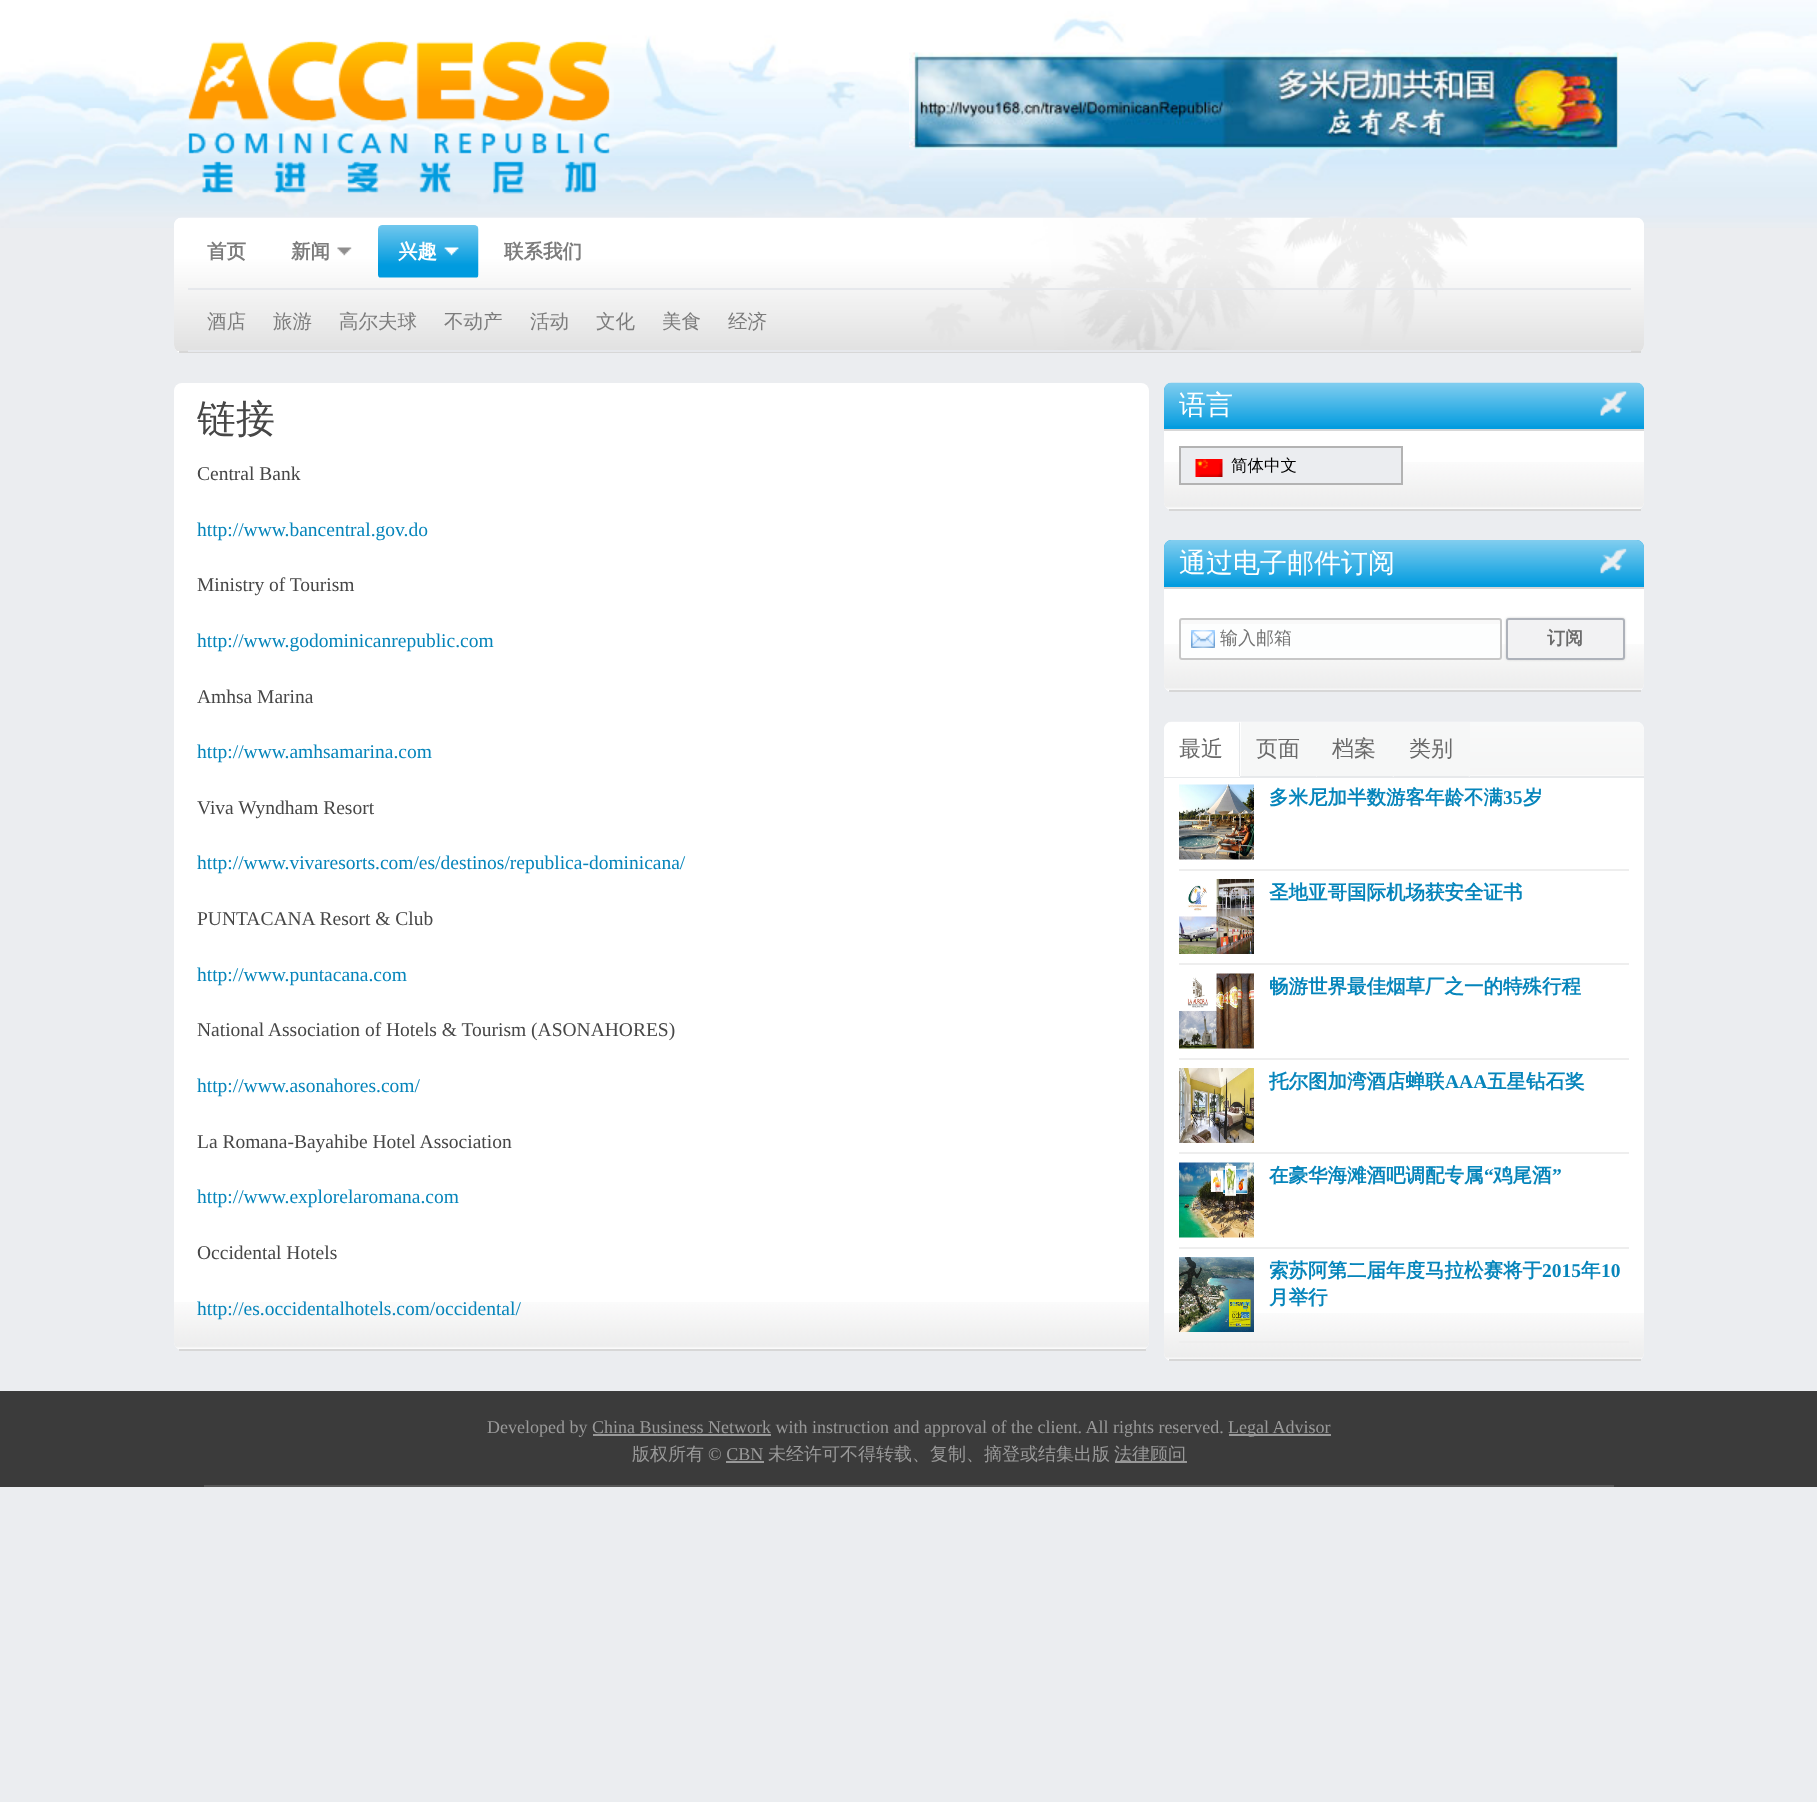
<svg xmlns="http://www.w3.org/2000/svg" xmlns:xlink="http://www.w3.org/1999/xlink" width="1817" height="1802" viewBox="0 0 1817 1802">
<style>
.cls-1{font:bold 19.5px WenQuanYi Zen Hei;fill:#7c7c7c}
.cls-2{font:bold 19.5px WenQuanYi Zen Hei;fill:#ffffff}
.cls-3{font:500 19.5px WenQuanYi Zen Hei;fill:#7c7c7c}
.cls-4{font:500 39px WenQuanYi Zen Hei;fill:#474747}
.cls-5{font:19.5px Liberation Serif;fill:#474747}
.cls-6{font:19.5px Liberation Serif;fill:#0685bb}
.cls-7{font:500 27px WenQuanYi Zen Hei;fill:#ffffff}
.cls-8{font:500 16.5px WenQuanYi Zen Hei;fill:#000000}
.cls-9{font:500 18px WenQuanYi Zen Hei;fill:#747474}
.cls-10{font:bold 18px WenQuanYi Zen Hei;fill:#6a6a6a}
.cls-11{font:500 22px WenQuanYi Zen Hei;fill:#6a6a6a}
.cls-12{font:bold 19.5px WenQuanYi Zen Hei;fill:#0685bb}
.cls-13{font:bold 19.5px Liberation Serif;fill:#0685bb}
.cls-14{font:18px Liberation Serif;fill:#999999}
.cls-15{font:500 18px WenQuanYi Zen Hei;fill:#999999}
</style>
<rect width="100%" height="100%" fill="#ebedf0"/>
<image xlink:href="image0.png" x="0" y="0" width="1817" height="228"/>
<image xlink:href="image1.png" x="184" y="41" width="430" height="153"/>
<image xlink:href="image2.png" x="909" y="52" width="710" height="98"/>
<rect fill="#ffffff" x="174" y="218" width="1470" height="135" rx="8"/>
<image xlink:href="image3.png" x="174" y="217" width="1470" height="134"/>
<rect fill="#d7d7d7" x="179" y="351" width="1462" height="2"/>
<image xlink:href="image4.png" x="337" y="247" width="15" height="9"/>
<image xlink:href="image5.png" x="378" y="225" width="101" height="53"/>
<image xlink:href="image6.png" x="444" y="247" width="15" height="9"/>
<rect fill="#e6e8ec" x="188" y="288" width="1443" height="2"/>
<rect fill="#e6e8ec" x="188" y="350" width="1443" height="2"/>
<rect fill="#ffffff" x="174" y="383" width="975" height="967" rx="8"/>
<image xlink:href="image7.png" x="174" y="1302" width="975" height="47"/>
<rect fill="#d7d7d7" x="179" y="1349" width="967" height="2"/>
<rect fill="#ffffff" x="1164" y="383" width="480" height="127" rx="8"/>
<image xlink:href="image8.png" x="1164" y="462" width="480" height="47"/>
<rect fill="#d7d7d7" x="1169" y="509" width="472" height="2"/>
<path fill="#039cdf" d="M1172 383H1636C1640.5 383 1644 386.5 1644 391V431H1164V391C1164 386.5 1167.5 383 1172 383Z"/>
<image xlink:href="image9.png" x="1164" y="382" width="480" height="44"/>
<rect fill="#d7d7d7" x="1164" y="429" width="480" height="2"/>
<rect fill="#ebedf0" stroke="#b3b3b3" stroke-width="2" x="1180" y="447" width="222" height="37"/>
<image xlink:href="image10.png" x="1195" y="459" width="28" height="18"/>
<rect fill="#ffffff" x="1164" y="540" width="480" height="152" rx="8"/>
<image xlink:href="image11.png" x="1164" y="644" width="480" height="46"/>
<rect fill="#d7d7d7" x="1169" y="690" width="472" height="2"/>
<path fill="#039cdf" d="M1172 540H1636C1640.5 540 1644 543.5 1644 548V588H1164V548C1164 543.5 1167.5 540 1172 540Z"/>
<image xlink:href="image12.png" x="1164" y="540" width="480" height="44"/>
<rect fill="#d7d7d7" x="1164" y="587" width="480" height="2"/>
<rect fill="#fdfefe" x="1179" y="618" width="323" height="42" rx="3"/>
<rect fill="#f9f9f9" x="1179" y="620" width="322" height="4"/>
<rect fill="none" stroke="#c7c7c7" stroke-width="2" x="1180" y="619" width="321" height="40" rx="2"/>
<image xlink:href="image13.png" x="1191" y="630" width="24" height="18"/>
<rect fill="#d1d2d1" filter="blur(1px)" x="1506" y="618" width="119" height="42" rx="3"/>
<rect fill="#f2f2f3" stroke="#aeb2ba" stroke-width="2" x="1507" y="619" width="117" height="40" rx="2"/>
<rect fill="#ffffff" x="1164" y="722" width="480" height="639" rx="8"/>
<image xlink:href="image11.png" x="1164" y="1313" width="480" height="46"/>
<rect fill="#d7d7d7" x="1169" y="1359" width="472" height="2"/>
<image xlink:href="image14.png" x="1164" y="721" width="480" height="55"/>
<rect fill="#e7e9eb" x="1164" y="776" width="480" height="2"/>
<path fill="#ffffff" d="M1172 722H1241V777H1164V730C1164 725.5 1167.5 722 1172 722Z"/>
<path fill="#e7e9eb" d="M1239 776V723L1240 722V776Z"/>
<rect fill="#f6f7f7" x="1241" y="722" width="229" height="55"/>
<path fill="#e7e9eb" d="M1317 777H1240V776H1316Z"/>
<path fill="#e7e9eb" d="M1394 777H1317V776H1392Z"/>
<path fill="#e7e9eb" d="M1470 777H1394V776H1468Z"/>
<rect fill="#eeeeee" x="1179" y="869" width="450" height="2"/>
<image xlink:href="image15.png" x="1179" y="784" width="75" height="76"/>
<rect fill="#eeeeee" x="1179" y="963" width="450" height="2"/>
<image xlink:href="image16.png" x="1179" y="879" width="75" height="75"/>
<rect fill="#eeeeee" x="1179" y="1058" width="450" height="2"/>
<image xlink:href="image17.png" x="1179" y="973" width="75" height="76"/>
<rect fill="#eeeeee" x="1179" y="1152" width="450" height="2"/>
<image xlink:href="image18.png" x="1179" y="1068" width="75" height="75"/>
<rect fill="#eeeeee" x="1179" y="1247" width="450" height="2"/>
<image xlink:href="image19.png" x="1179" y="1162" width="75" height="76"/>
<rect fill="#eeeeee" x="1179" y="1341" width="450" height="2"/>
<image xlink:href="image20.png" x="1179" y="1257" width="75" height="75"/>
<rect fill="#3b3b3b" x="0" y="1391" width="1817" height="96"/>
<rect fill="#575757" x="204" y="1485" width="1410" height="2"/>
<rect fill="#999999" x="1229" y="1434" width="102" height="2"/>
<rect fill="#999999" x="593" y="1434" width="178" height="2"/>
<rect fill="#999999" x="1115" y="1461" width="72" height="2"/>
<rect fill="#999999" x="726" y="1461" width="38" height="2"/>
<text class="cls-1" x="207" y="258">首页</text>
<text class="cls-1" x="291" y="258">新闻</text>
<text class="cls-2" x="398" y="258">兴趣</text>
<text class="cls-1" x="504" y="258">联系我们</text>
<text class="cls-3" x="207" y="328">酒店</text>
<text class="cls-3" x="273" y="328">旅游</text>
<text class="cls-3" x="339" y="328">高尔夫球</text>
<text class="cls-3" x="444" y="328">不动产</text>
<text class="cls-3" x="530" y="328">活动</text>
<text class="cls-3" x="596" y="328">文化</text>
<text class="cls-3" x="662" y="328">美食</text>
<text class="cls-3" x="728" y="328">经济</text>
<text class="cls-4" x="197" y="432">链接</text>
<text class="cls-5" x="197" y="480">Central Bank</text>
<text class="cls-6" x="197" y="536">http://www.bancentral.gov.do</text>
<text class="cls-5" x="197" y="591">Ministry of Tourism</text>
<text class="cls-6" x="197" y="647">http://www.godominicanrepublic.com</text>
<text class="cls-5" x="197" y="703">Amhsa Marina</text>
<text class="cls-6" x="197" y="758">http://www.amhsamarina.com</text>
<text class="cls-5" x="197" y="814">Viva Wyndham Resort</text>
<text class="cls-6" x="197" y="869">http://www.vivaresorts.com/es/destinos/republica-dominicana/</text>
<text class="cls-5" x="197" y="925">PUNTACANA Resort &amp; Club</text>
<text class="cls-6" x="197" y="981">http://www.puntacana.com</text>
<text class="cls-5" x="197" y="1036">National Association of Hotels &amp; Tourism (ASONAHORES)</text>
<text class="cls-6" x="197" y="1092">http://www.asonahores.com/</text>
<text class="cls-5" x="197" y="1148">La Romana-Bayahibe Hotel Association</text>
<text class="cls-6" x="197" y="1203">http://www.explorelaromana.com</text>
<text class="cls-5" x="197" y="1259">Occidental Hotels</text>
<text class="cls-6" x="197" y="1315">http://es.occidentalhotels.com/occidental/</text>
<text class="cls-7" x="1179" y="414">语言</text>
<text class="cls-8" x="1231" y="471">简体中文</text>
<text class="cls-7" x="1179" y="572">通过电子邮件订阅</text>
<text class="cls-9" x="1220" y="644">输入邮箱</text>
<text class="cls-10" x="1547" y="644">订阅</text>
<text class="cls-11" x="1179" y="756">最近</text>
<text class="cls-11" x="1256" y="756">页面</text>
<text class="cls-11" x="1332" y="756">档案</text>
<text class="cls-11" x="1409" y="756">类别</text>
<text class="cls-12" x="1269" y="804">多米尼加半数游客年龄不满</text>
<text class="cls-13" x="1503" y="804">35</text>
<text class="cls-12" x="1523" y="804">岁</text>
<text class="cls-12" x="1269" y="899">圣地亚哥国际机场获安全证书</text>
<text class="cls-12" x="1269" y="993">畅游世界最佳烟草厂之一的特殊行程</text>
<text class="cls-12" x="1269" y="1088">托尔图加湾酒店蝉联</text>
<text class="cls-13" x="1445" y="1088">AAA</text>
<text class="cls-12" x="1487" y="1088">五星钻石奖</text>
<text class="cls-12" x="1269" y="1182">在豪华海滩酒吧调配专属</text>
<text class="cls-13" x="1484" y="1182">“</text>
<text class="cls-12" x="1493" y="1182">鸡尾酒</text>
<text class="cls-13" x="1552" y="1182">”</text>
<text class="cls-12" x="1269" y="1277">索苏阿第二届年度马拉松赛将于</text>
<text class="cls-13" x="1542" y="1277">2015</text>
<text class="cls-12" x="1581" y="1277">年</text>
<text class="cls-13" x="1601" y="1277">10</text>
<text class="cls-12" x="1269" y="1304">月举行</text>
<text class="cls-14" x="487" y="1433">Developed by China Business Network with instruction and approval of the client. All rights reserved.</text>
<text class="cls-14" x="1228" y="1433">Legal Advisor</text>
<text class="cls-15" x="632" y="1460">版权所有</text>
<text class="cls-14" x="708" y="1460">© CBN</text>
<text class="cls-15" x="768" y="1460">未经许可不得转载、复制、摘登或结集出版</text>
<text class="cls-15" x="1114" y="1460">法律顾问</text>
</svg>
